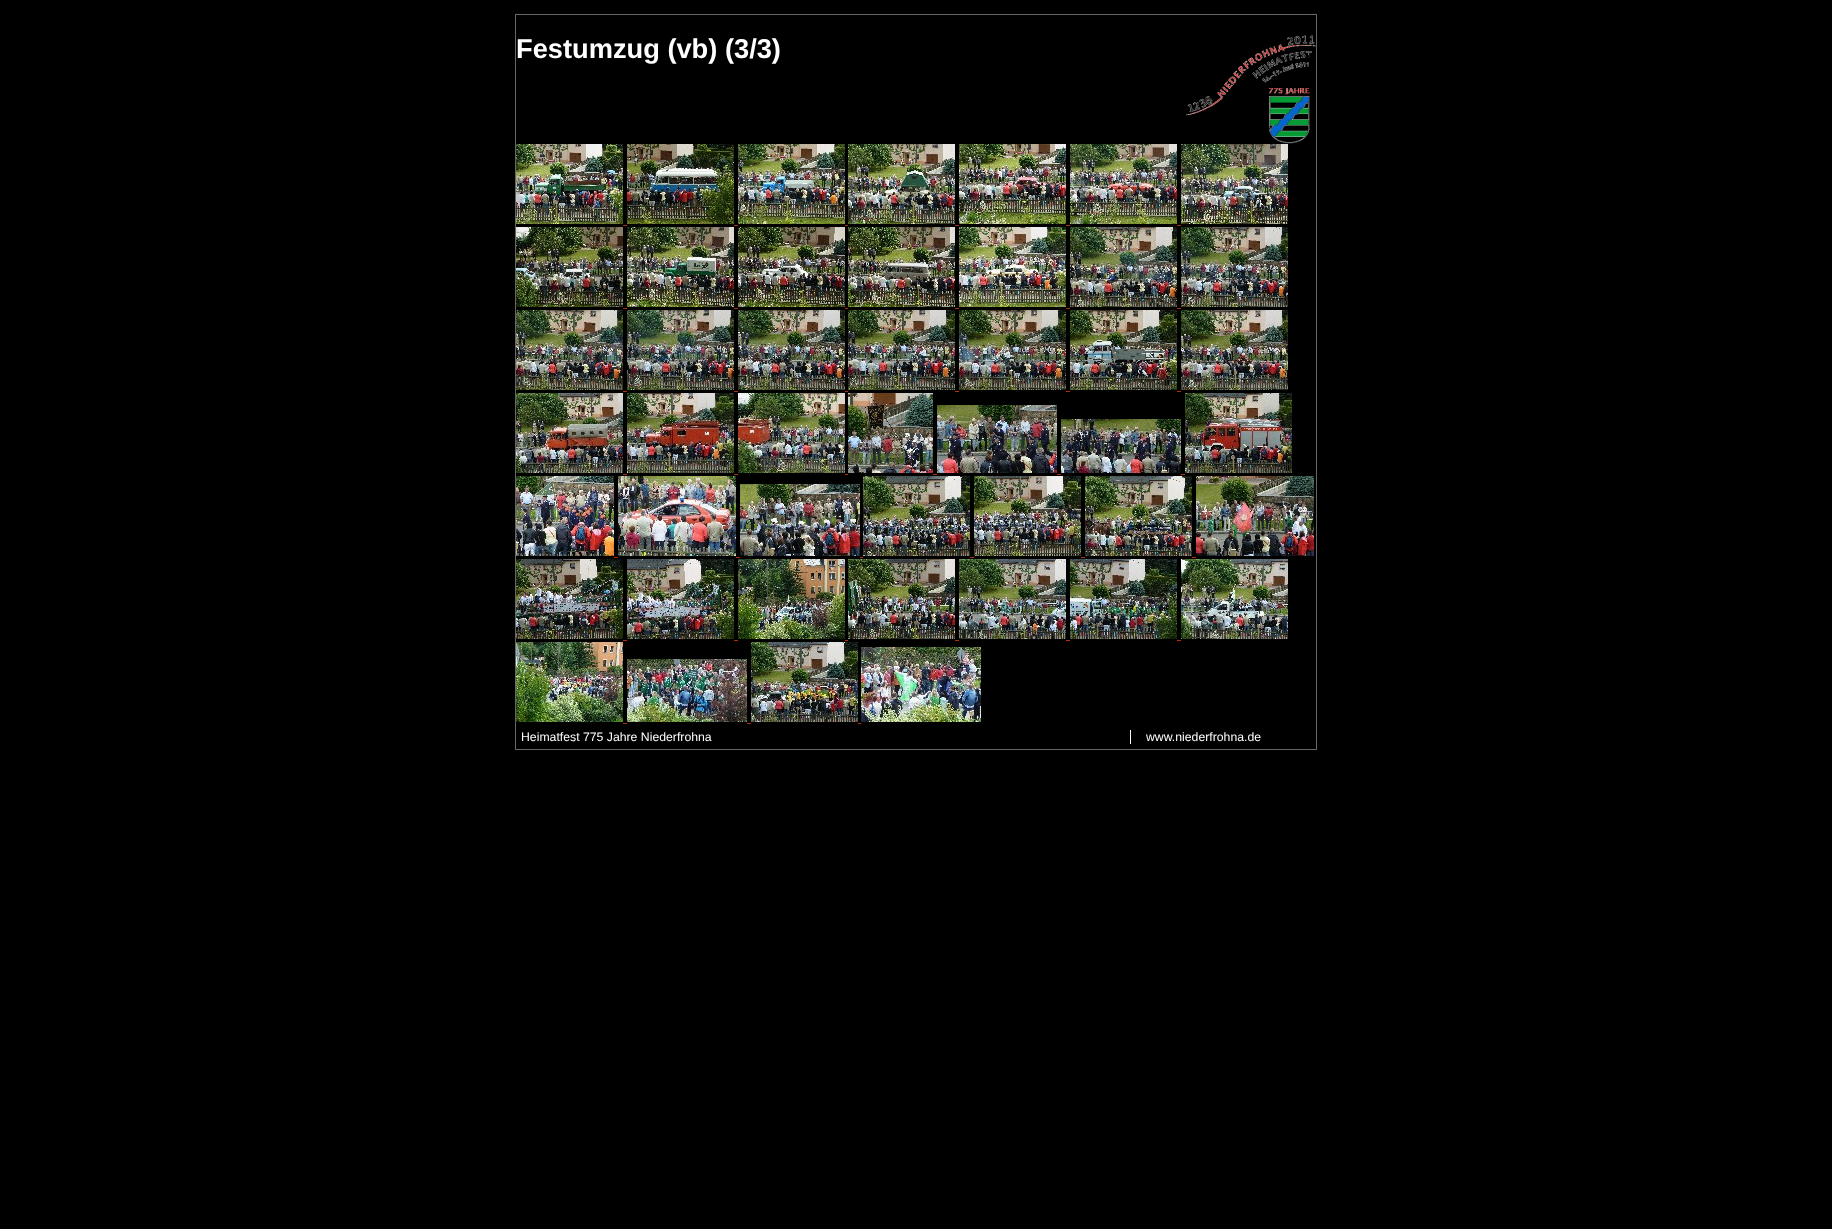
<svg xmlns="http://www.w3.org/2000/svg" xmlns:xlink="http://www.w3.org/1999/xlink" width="1832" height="1229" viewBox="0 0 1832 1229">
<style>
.cls-1{font:bold 27.25px Liberation Sans;fill:#ffffff}
.cls-2{font:12.25px Liberation Sans;fill:#ffffff}
</style>
<rect width="100%" height="100%" fill="#000000"/>
<rect fill="none" stroke="#676767" x="515.5" y="14.5" width="801" height="735"/>
<image xlink:href="image0.png" x="1186" y="35" width="130" height="109"/>
<image xlink:href="image1.png" x="516" y="144" width="107" height="80"/>
<image xlink:href="image2.png" x="627" y="144" width="107" height="80"/>
<image xlink:href="image3.png" x="738" y="144" width="107" height="80"/>
<image xlink:href="image4.png" x="848" y="144" width="107" height="80"/>
<image xlink:href="image5.png" x="959" y="144" width="107" height="80"/>
<image xlink:href="image6.png" x="1070" y="144" width="107" height="80"/>
<image xlink:href="image7.png" x="1181" y="144" width="107" height="80"/>
<rect fill="#b52c07" x="623" y="225" width="4" height="1"/>
<rect fill="#b52c07" x="734" y="225" width="4" height="1"/>
<rect fill="#b52c07" x="845" y="225" width="3" height="1"/>
<rect fill="#b52c07" x="955" y="225" width="4" height="1"/>
<rect fill="#b52c07" x="1066" y="225" width="4" height="1"/>
<rect fill="#b52c07" x="1177" y="225" width="4" height="1"/>
<image xlink:href="image8.png" x="516" y="227" width="107" height="80"/>
<image xlink:href="image9.png" x="627" y="227" width="107" height="80"/>
<image xlink:href="image10.png" x="738" y="227" width="107" height="80"/>
<image xlink:href="image11.png" x="848" y="227" width="107" height="80"/>
<image xlink:href="image12.png" x="959" y="227" width="107" height="80"/>
<image xlink:href="image13.png" x="1070" y="227" width="107" height="80"/>
<image xlink:href="image14.png" x="1181" y="227" width="107" height="80"/>
<rect fill="#b52c07" x="623" y="308" width="4" height="1"/>
<rect fill="#b52c07" x="734" y="308" width="4" height="1"/>
<rect fill="#b52c07" x="845" y="308" width="3" height="1"/>
<rect fill="#b52c07" x="955" y="308" width="4" height="1"/>
<rect fill="#b52c07" x="1066" y="308" width="4" height="1"/>
<rect fill="#b52c07" x="1177" y="308" width="4" height="1"/>
<image xlink:href="image15.png" x="516" y="310" width="107" height="80"/>
<image xlink:href="image16.png" x="627" y="310" width="107" height="80"/>
<image xlink:href="image17.png" x="738" y="310" width="107" height="80"/>
<image xlink:href="image18.png" x="848" y="310" width="107" height="80"/>
<image xlink:href="image19.png" x="959" y="310" width="107" height="80"/>
<image xlink:href="image20.png" x="1070" y="310" width="107" height="80"/>
<image xlink:href="image21.png" x="1181" y="310" width="107" height="80"/>
<rect fill="#b52c07" x="623" y="391" width="4" height="1"/>
<rect fill="#b52c07" x="734" y="391" width="4" height="1"/>
<rect fill="#b52c07" x="845" y="391" width="3" height="1"/>
<rect fill="#b52c07" x="955" y="391" width="4" height="1"/>
<rect fill="#b52c07" x="1066" y="391" width="4" height="1"/>
<rect fill="#b52c07" x="1177" y="391" width="4" height="1"/>
<image xlink:href="image22.png" x="516" y="393" width="107" height="80"/>
<image xlink:href="image23.png" x="627" y="393" width="107" height="80"/>
<image xlink:href="image24.png" x="738" y="393" width="107" height="80"/>
<image xlink:href="image25.png" x="848" y="393" width="85" height="80"/>
<image xlink:href="image26.png" x="937" y="405" width="120" height="68"/>
<image xlink:href="image27.png" x="1061" y="419" width="120" height="54"/>
<image xlink:href="image28.png" x="1185" y="393" width="107" height="80"/>
<rect fill="#b52c07" x="623" y="474" width="4" height="1"/>
<rect fill="#b52c07" x="734" y="474" width="4" height="1"/>
<rect fill="#b52c07" x="845" y="474" width="3" height="1"/>
<rect fill="#b52c07" x="933" y="474" width="4" height="1"/>
<rect fill="#b52c07" x="1057" y="474" width="4" height="1"/>
<rect fill="#b52c07" x="1181" y="474" width="4" height="1"/>
<image xlink:href="image29.png" x="516" y="476" width="98" height="80"/>
<image xlink:href="image30.png" x="618" y="476" width="118" height="80"/>
<image xlink:href="image31.png" x="740" y="484" width="120" height="72"/>
<image xlink:href="image32.png" x="863" y="476" width="107" height="80"/>
<image xlink:href="image33.png" x="974" y="476" width="107" height="80"/>
<image xlink:href="image34.png" x="1085" y="476" width="107" height="80"/>
<image xlink:href="image35.png" x="1196" y="476" width="118" height="80"/>
<rect fill="#b52c07" x="614" y="557" width="4" height="1"/>
<rect fill="#b52c07" x="736" y="557" width="4" height="1"/>
<rect fill="#b52c07" x="860" y="557" width="3" height="1"/>
<rect fill="#b52c07" x="970" y="557" width="4" height="1"/>
<rect fill="#b52c07" x="1081" y="557" width="4" height="1"/>
<rect fill="#b52c07" x="1192" y="557" width="4" height="1"/>
<image xlink:href="image36.png" x="516" y="559" width="107" height="80"/>
<image xlink:href="image37.png" x="627" y="559" width="107" height="80"/>
<image xlink:href="image38.png" x="738" y="559" width="107" height="80"/>
<image xlink:href="image39.png" x="848" y="559" width="107" height="80"/>
<image xlink:href="image40.png" x="959" y="559" width="107" height="80"/>
<image xlink:href="image41.png" x="1070" y="559" width="107" height="80"/>
<image xlink:href="image42.png" x="1181" y="559" width="107" height="80"/>
<rect fill="#b52c07" x="623" y="640" width="4" height="1"/>
<rect fill="#b52c07" x="734" y="640" width="4" height="1"/>
<rect fill="#b52c07" x="845" y="640" width="3" height="1"/>
<rect fill="#b52c07" x="955" y="640" width="4" height="1"/>
<rect fill="#b52c07" x="1066" y="640" width="4" height="1"/>
<rect fill="#b52c07" x="1177" y="640" width="4" height="1"/>
<image xlink:href="image43.png" x="516" y="642" width="107" height="80"/>
<image xlink:href="image44.png" x="627" y="659" width="120" height="63"/>
<image xlink:href="image45.png" x="751" y="642" width="107" height="80"/>
<image xlink:href="image46.png" x="861" y="647" width="120" height="75"/>
<rect fill="#b52c07" x="623" y="723" width="4" height="1"/>
<rect fill="#b52c07" x="747" y="723" width="4" height="1"/>
<rect fill="#b52c07" x="858" y="723" width="3" height="1"/>
<rect fill="#ffffff" x="1130" y="730" width="1" height="14"/>
<text class="cls-1" x="516" y="58">Festumzug (vb) (3/3)</text>
<text class="cls-2" x="521" y="741">Heimatfest 775 Jahre Niederfrohna</text>
<text class="cls-2" x="1146" y="741">www.niederfrohna.de</text>
</svg>
